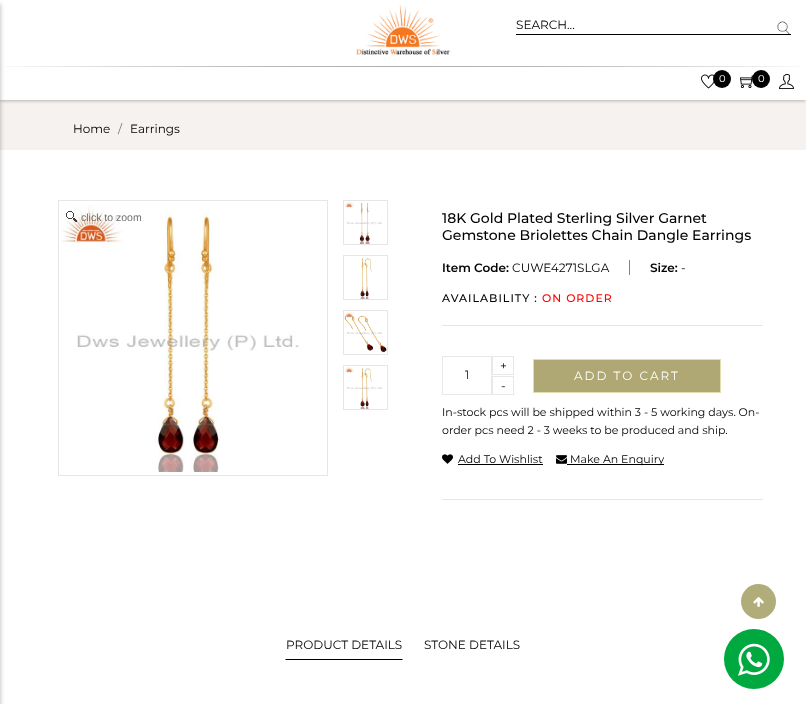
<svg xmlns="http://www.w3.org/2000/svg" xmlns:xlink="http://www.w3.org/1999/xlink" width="806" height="704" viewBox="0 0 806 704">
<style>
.cls-1{font:12px Montserrat;fill:#000000}
.cls-2{font:10px Montserrat;fill:#ffffff}
.cls-3{font:12px Montserrat;fill:#6c757d}
.cls-4{font:10.5px Liberation Sans;fill:#717070}
.cls-5{font:500 14px Montserrat;fill:#000000}
.cls-6{font:600 12px Montserrat;fill:#000000}
.cls-7{font:500 11px Montserrat;letter-spacing:1px;fill:#000000}
.cls-8{font:500 11px Montserrat;letter-spacing:1px;fill:#ff0000}
.cls-9{font:12px Montserrat;fill:#232323}
.cls-10{font:12px Montserrat;letter-spacing:2px;fill:#ffffff}
.cls-11{font:11px Montserrat;fill:#000000}
</style>
<rect width="100%" height="100%" fill="#ffffff"/>
<rect fill="#f6f2ef" x="0" y="100" width="806" height="50"/>
<rect fill="#000000" fill-opacity="0.4" filter="blur(2px)" x="0" y="0" width="806" height="100"/>
<rect fill="#ffffff" x="0" y="0" width="806" height="100"/>
<image xlink:href="image0.png" x="356" y="4" width="94" height="51"/>
<rect fill="#000000" x="516" y="34" width="275" height="1"/>
<image xlink:href="image1.png" x="777" y="21" width="13" height="13"/>
<image xlink:href="image2.png" x="5" y="66" width="796" height="1"/>
<rect fill="#000000" fill-opacity="0.3" filter="blur(2.5px)" x="-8" y="4" width="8" height="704"/>
<image xlink:href="image3.png" x="701" y="74" width="13" height="15"/>
<circle fill="#000000" cx="722" cy="79" r="9"/>
<image xlink:href="image4.png" x="740" y="75" width="13" height="13"/>
<circle fill="#000000" cx="761" cy="79" r="9"/>
<image xlink:href="image5.png" x="779" y="73" width="15" height="16"/>
<rect fill="none" stroke="#e6e6e6" x="58.5" y="200.5" width="269" height="275"/>
<image xlink:href="image6.png" x="61" y="205" width="238" height="267"/>
<image xlink:href="image7.png" x="66" y="211" width="11" height="11"/>
<rect fill="none" stroke="#e6e6e6" x="343.5" y="200.5" width="44" height="44"/>
<image xlink:href="image8.png" x="344" y="202" width="39" height="42"/>
<rect fill="none" stroke="#e6e6e6" x="343.5" y="255.5" width="44" height="44"/>
<image xlink:href="image9.png" x="360" y="258" width="12" height="41"/>
<rect fill="none" stroke="#e6e6e6" x="343.5" y="310.5" width="44" height="44"/>
<image xlink:href="image10.png" x="344" y="312" width="43" height="41"/>
<rect fill="none" stroke="#e6e6e6" x="343.5" y="365.5" width="44" height="44"/>
<image xlink:href="image11.png" x="344" y="367" width="39" height="42"/>
<rect fill="#828282" x="629" y="260" width="1" height="15"/>
<rect fill="#e6e6e6" x="442" y="325" width="321" height="1"/>
<rect fill="none" stroke="#e8e8e8" x="492.5" y="356.5" width="21" height="18"/>
<rect fill="none" stroke="#e8e8e8" x="442.5" y="356.5" width="49" height="38"/>
<rect fill="none" stroke="#e8e8e8" x="492.5" y="376.5" width="21" height="18"/>
<rect fill="#afa774" stroke="#e1ddad" x="533.5" y="359.5" width="187" height="33"/>
<image xlink:href="image12.png" x="442" y="454" width="11" height="10"/>
<rect fill="#000000" x="458" y="464" width="85" height="1"/>
<image xlink:href="image13.png" x="556" y="455" width="11" height="9"/>
<rect fill="#000000" x="567" y="464" width="97" height="1"/>
<rect fill="#e6e6e6" x="442" y="499" width="321" height="1"/>
<path fill="#000000" d="M403 660L402 659H286L285 660Z"/>
<circle fill="#b1ad7b" cx="758.5" cy="601.5" r="17.5"/>
<image xlink:href="image14.png" x="753" y="597" width="11" height="10"/>
<circle fill="#00a93f" cx="754" cy="659" r="30"/>
<image xlink:href="image15.png" x="738" y="643" width="32" height="33"/>
<text class="cls-1" x="516" y="29">SEARCH...</text>
<text class="cls-2" x="719" y="82">0</text>
<text class="cls-2" x="758" y="82">0</text>
<text class="cls-1" x="73" y="133">Home</text>
<text class="cls-3" x="118" y="133">/</text>
<text class="cls-1" x="130" y="133">Earrings</text>
<text class="cls-4" x="81" y="221">click to zoom</text>
<text class="cls-5"><tspan x="442" y="223">18K Gold Plated Sterling Silver Garnet</tspan><tspan x="442" y="240">Gemstone Briolettes Chain Dangle Earrings</tspan></text>
<text class="cls-6" x="442" y="272">Item Code:</text>
<text class="cls-1" x="512" y="272">CUWE4271SLGA</text>
<text class="cls-6" x="650" y="272">Size:</text>
<text class="cls-1" x="681" y="272">-</text>
<text class="cls-7" x="442" y="302">AVAILABILITY :</text>
<text class="cls-8" x="542" y="302">ON ORDER</text>
<text class="cls-1" x="500" y="370">+</text>
<text class="cls-9" x="465" y="379">1</text>
<text class="cls-1" x="501" y="390">-</text>
<text class="cls-10" x="574" y="380">ADD TO CART</text>
<text class="cls-11"><tspan x="442" y="416">In-stock pcs will be shipped within 3 - 5 working days. On-</tspan><tspan x="442" y="434">order pcs need 2 - 3 weeks to be produced and ship.</tspan></text>
<text class="cls-11" x="458" y="463">Add To Wishlist</text>
<text class="cls-11" x="570" y="463">Make An Enquiry</text>
<text class="cls-1" x="286" y="649">PRODUCT DETAILS</text>
<text class="cls-1" x="424" y="649">STONE DETAILS</text>
</svg>
